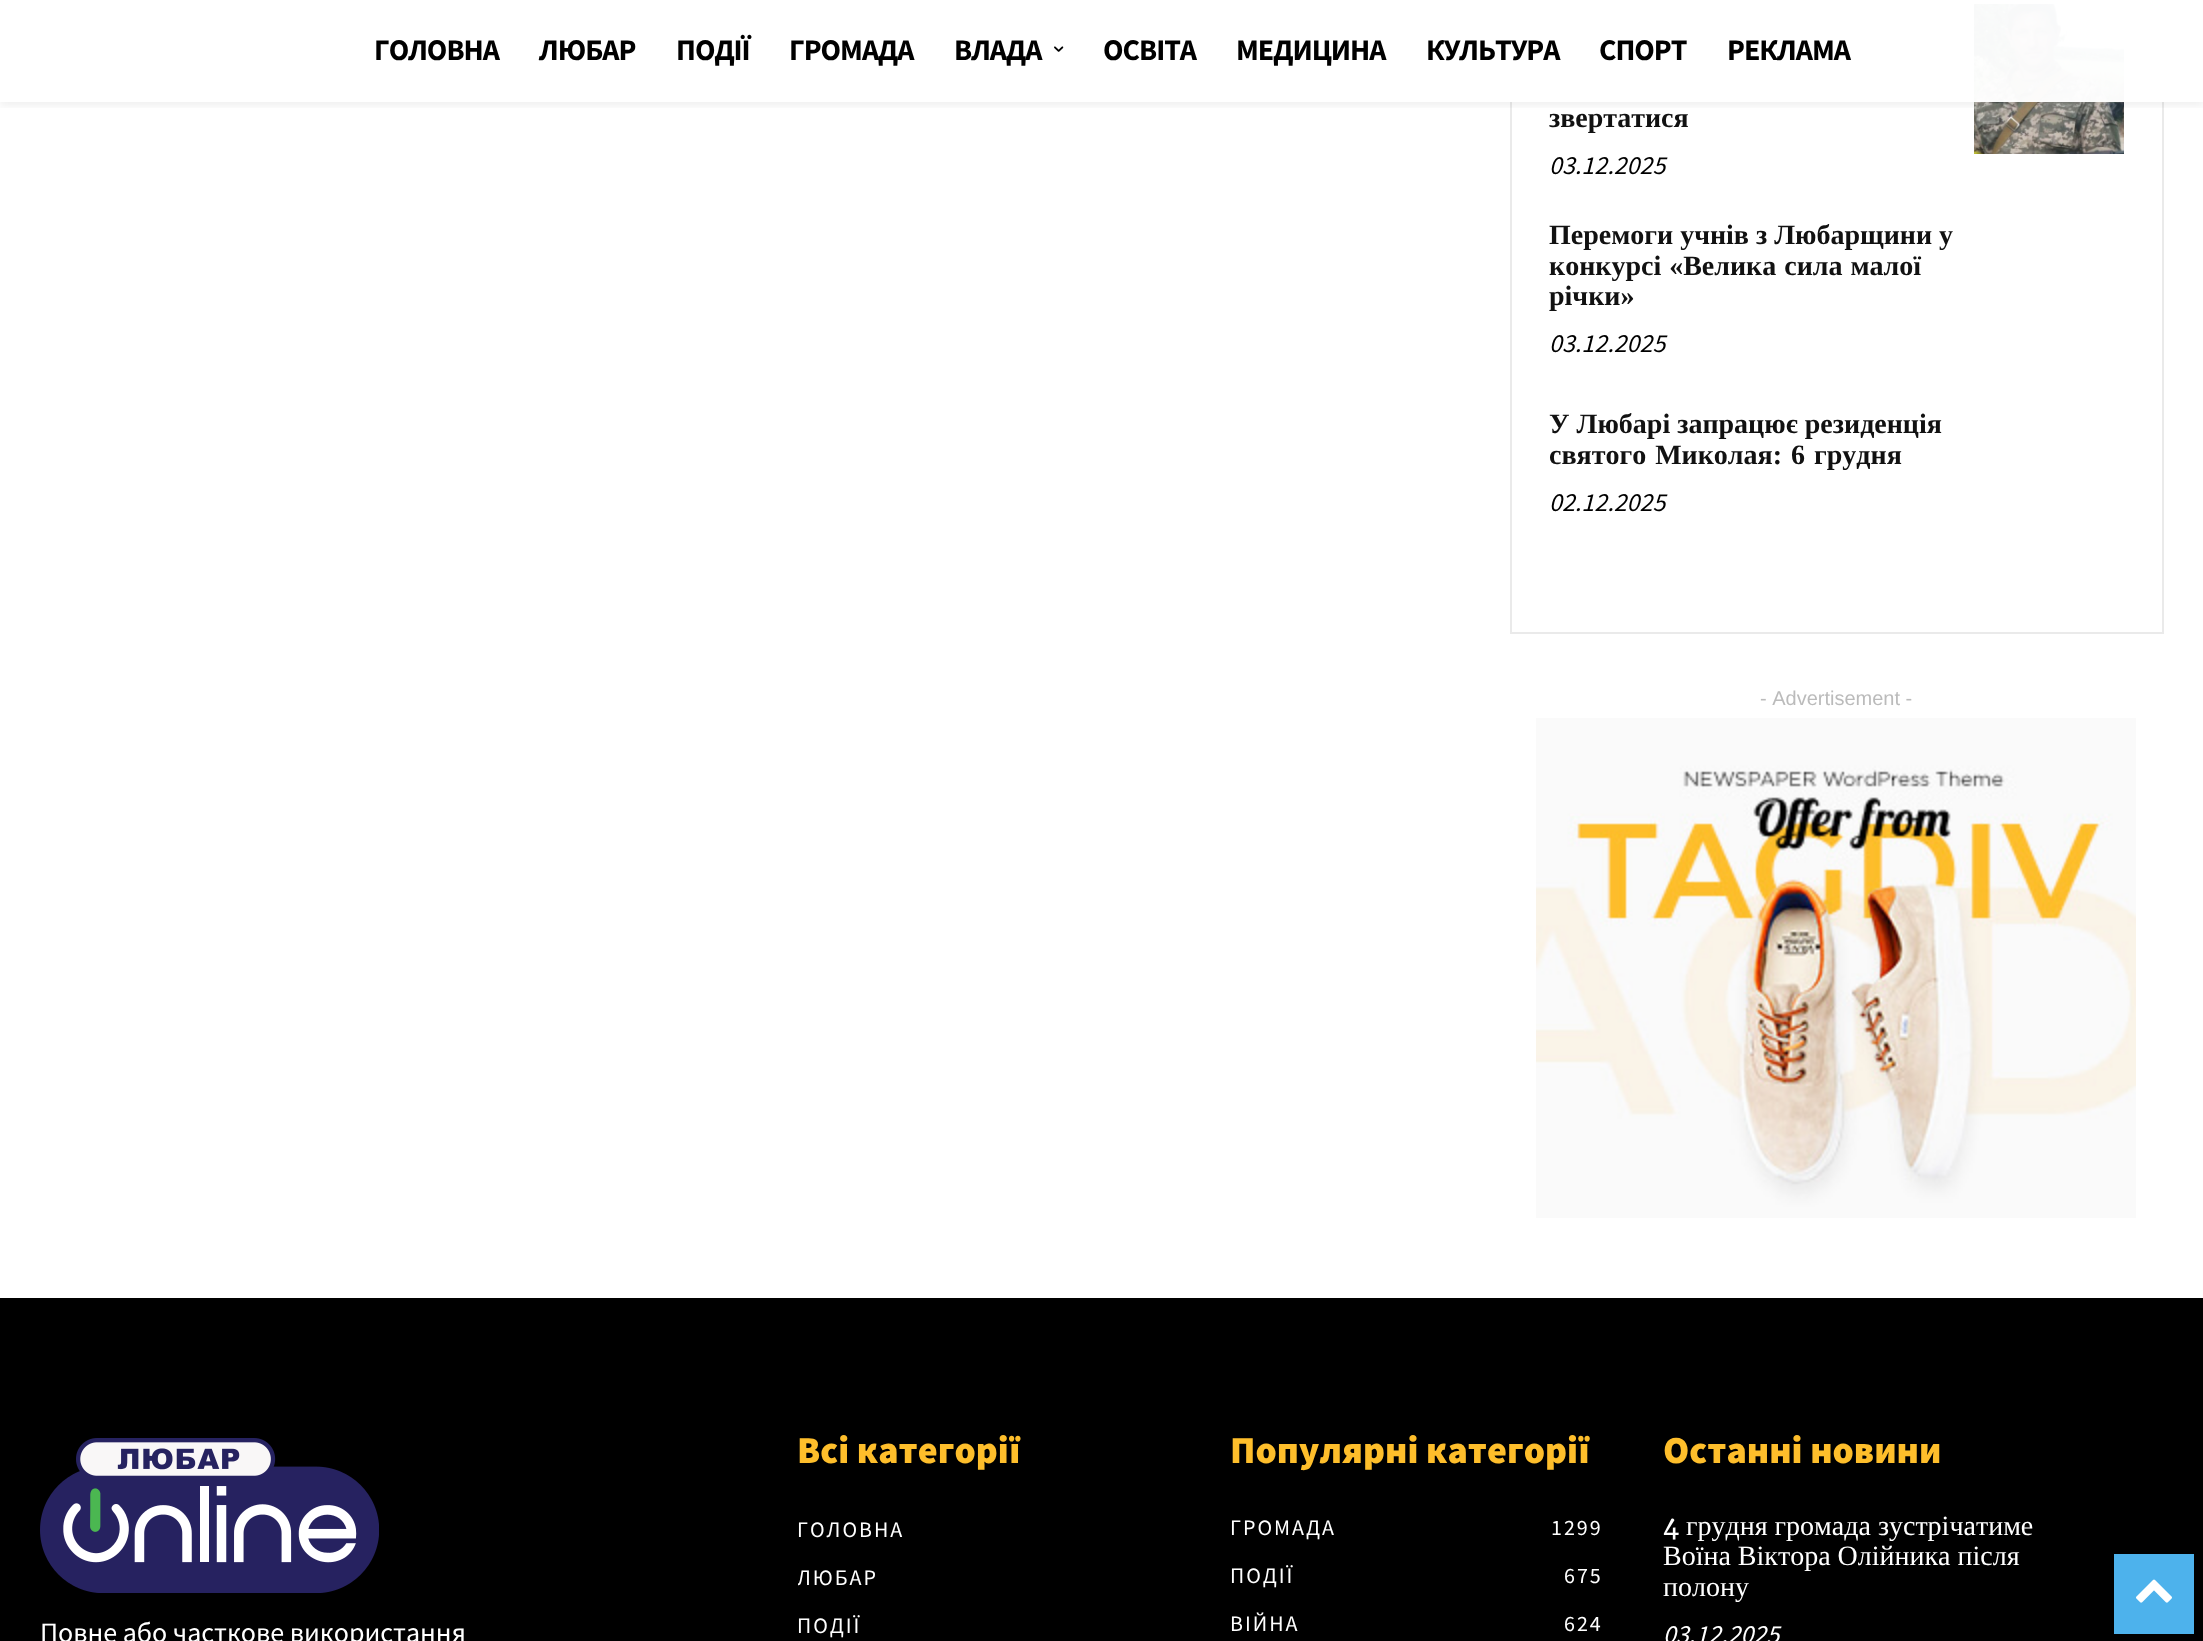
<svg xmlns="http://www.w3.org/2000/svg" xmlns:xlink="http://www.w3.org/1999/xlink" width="2203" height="1641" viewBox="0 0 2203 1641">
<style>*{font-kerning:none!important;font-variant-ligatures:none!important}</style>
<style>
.cls-1{font:bold 30px Source Sans Pro;letter-spacing:-1px;fill:#000000}
.cls-2{font:bold 28px Liberation Serif;fill:#111111}
.cls-3{font:italic 26px Source Sans Pro;fill:#000000}
.cls-4{font:20px Liberation Sans;fill:#bbbbbb}
.cls-5{font:28px Source Sans Pro;fill:#ffffff}
.cls-6{font:900 38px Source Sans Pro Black;fill:#febe2b}
.cls-7{font:22px Source Sans Pro;letter-spacing:2px;fill:#ffffff}
.cls-8{font:500 28px Gelasio;fill:#ffffff}
.cls-9{font:28px Liberation Serif;fill:#ffffff}
.cls-10{font:italic 26px Source Sans Pro;fill:#ffffff}
</style>
<defs>
<clipPath id="clip1"><rect x="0" y="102" width="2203" height="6"/></clipPath>
<clipPath id="clip2"><rect x="798" y="1504" width="392" height="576"/></clipPath>
</defs>
<rect width="100%" height="100%" fill="#ffffff"/>
<rect fill="none" stroke="#eaeaea" stroke-width="2" x="1511" y="-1" width="652" height="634"/>
<image xlink:href="image1.png" x="1974" y="4" width="150" height="150"/>
<rect fill="#ffffff" fill-opacity="0.97" x="1510" y="0" width="654" height="102"/>
<g clip-path="url(#clip1)">
<rect fill="#000000" fill-opacity="0.06" filter="blur(4px)" x="0" y="4" width="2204" height="102"/>
</g>
<image xlink:href="image0.png" x="1054" y="46" width="10" height="6"/>
<image xlink:href="image2.png" x="1536" y="718" width="600" height="500"/>
<rect fill="#000000" x="0" y="1298" width="2203" height="343"/>
<image xlink:href="image3.png" x="40" y="1438" width="339" height="155"/>
<rect fill="#4db2ec" x="2114" y="1554" width="80" height="80"/>
<image xlink:href="image4.png" x="2136" y="1579" width="36" height="24"/>
<text class="cls-1" x="374" y="60">ГОЛОВНА</text>
<text class="cls-1" x="539" y="60">ЛЮБАР</text>
<text class="cls-1" x="676" y="60">ПОДІЇ</text>
<text class="cls-1" x="789" y="60">ГРОМАДА</text>
<text class="cls-1" x="954" y="60">ВЛАДА</text>
<text class="cls-1" x="1103" y="60">ОСВІТА</text>
<text class="cls-1" x="1236" y="60">МЕДИЦИНА</text>
<text class="cls-1" x="1426" y="60">КУЛЬТУРА</text>
<text class="cls-1" x="1599" y="60">СПОРТ</text>
<text class="cls-1" x="1727" y="60">РЕКЛАМА</text>
<text class="cls-2" x="1549" y="127">звертатися</text>
<text class="cls-3" x="1549" y="174">03.12.2025</text>
<text class="cls-2"><tspan x="1549" y="244">Перемоги учнів з Любарщини у</tspan><tspan x="1549" y="275" word-spacing="1">конкурсі «Велика сила малої</tspan><tspan x="1549" y="305">річки»</tspan></text>
<text class="cls-3" x="1549" y="352">03.12.2025</text>
<text class="cls-2"><tspan x="1549" y="433">У Любарі запрацює резиденція</tspan><tspan x="1549" y="464" word-spacing="2">святого Миколая: 6 грудня</tspan></text>
<text class="cls-3" x="1549" y="511">02.12.2025</text>
<text class="cls-4" x="1760" y="705">- Advertisement -</text>
<text class="cls-5" x="40" y="1642">Повне або часткове використання</text>
<text class="cls-6" x="797" y="1463">Всі категорії</text>
<text class="cls-7" x="797" y="1537">ГОЛОВНА</text>
<g clip-path="url(#clip2)">
<text class="cls-7" x="797" y="1585">ЛЮБАР</text>
</g>
<text class="cls-7" x="797" y="1633">ПОДІЇ</text>
<text class="cls-6" x="1230" y="1463">Популярні категорії</text>
<text class="cls-7" x="1230" y="1535">ГРОМАДА</text>
<text class="cls-7" x="1551" y="1535">1299</text>
<text class="cls-7" x="1230" y="1583">ПОДІЇ</text>
<text class="cls-7" x="1564" y="1583">675</text>
<text class="cls-7" x="1230" y="1631">ВІЙНА</text>
<text class="cls-7" x="1564" y="1631">624</text>
<text class="cls-6" x="1663" y="1463">Останні новини</text>
<text class="cls-8" x="1663" y="1535">4</text>
<text class="cls-9" x="1686" y="1535">грудня громада зустрічатиме</text>
<text class="cls-9"><tspan x="1663" y="1565">Воїна Віктора Олійника після</tspan><tspan x="1663" y="1596">полону</tspan></text>
<text class="cls-10" x="1663" y="1643">03.12.2025</text>
</svg>
